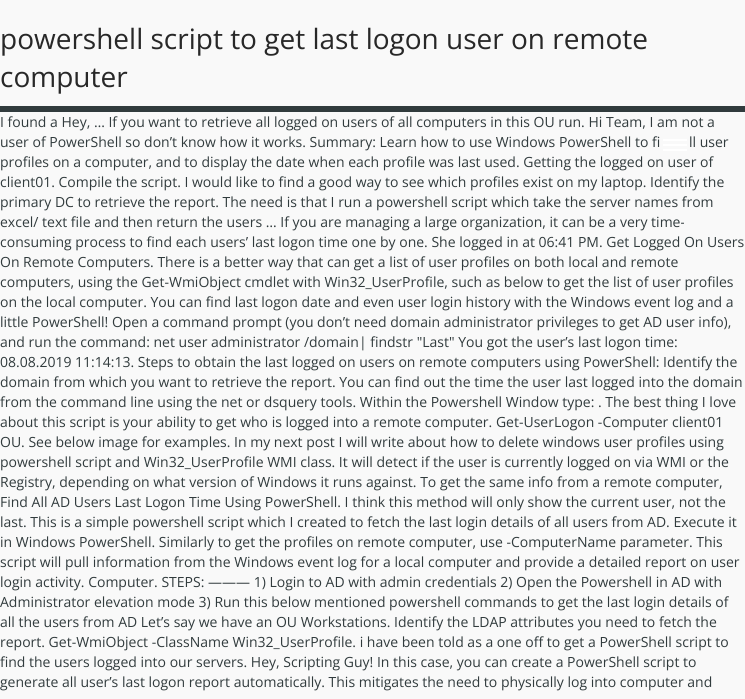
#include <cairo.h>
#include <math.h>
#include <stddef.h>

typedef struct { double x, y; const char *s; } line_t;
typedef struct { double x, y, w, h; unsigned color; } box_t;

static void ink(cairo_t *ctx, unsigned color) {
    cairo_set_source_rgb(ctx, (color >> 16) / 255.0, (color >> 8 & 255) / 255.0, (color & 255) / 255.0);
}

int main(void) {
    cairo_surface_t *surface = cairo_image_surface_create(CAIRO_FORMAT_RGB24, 745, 699);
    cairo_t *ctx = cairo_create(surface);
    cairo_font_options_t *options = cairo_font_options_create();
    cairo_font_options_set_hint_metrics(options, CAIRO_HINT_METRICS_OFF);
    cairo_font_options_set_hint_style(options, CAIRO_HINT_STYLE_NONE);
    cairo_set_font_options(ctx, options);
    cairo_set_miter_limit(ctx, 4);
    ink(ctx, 0xF9F9F9);
    cairo_paint(ctx);
    cairo_select_font_face(ctx, "Open Sans", CAIRO_FONT_SLANT_NORMAL, CAIRO_FONT_WEIGHT_NORMAL);
    cairo_set_font_size(ctx, 28);
    ink(ctx, 0x282828);
    cairo_move_to(ctx, 0, 49);
    cairo_show_text(ctx, "powershell script to get last logon user on remote");
    cairo_move_to(ctx, 0, 87);
    cairo_show_text(ctx, "computer");
    {
        static const box_t items[] = {
            {0, 106, 745, 6, 0x313B3D},
            {663, 144, 24, 2, 0xFFFFFF},
            {663, 139, 24, 2, 0xFFFFFF},
            {663, 149, 24, 2, 0xFFFFFF},
        };
        for (size_t i = 0; i < sizeof items / sizeof *items; i++) {
            ink(ctx, items[i].color);
            cairo_rectangle(ctx, items[i].x, items[i].y, items[i].w, items[i].h);
            cairo_fill(ctx);
        }
    }
    cairo_set_font_size(ctx, 14);
    ink(ctx, 0x313B3D);
    {
        static const line_t items[] = {
            {0, 127, "I found a Hey, … If you want to retrieve all logged on users of all computers in this OU run. Hi Team, I am not a"},
            {0, 147, "user of PowerShell so don’t know how it works. Summary: Learn how to use Windows PowerShell to fi"},
            {689, 147, "ll user"},
            {0, 167, "profiles on a computer, and to display the date when each profile was last used. Getting the logged on user of"},
            {0, 187, "client01. Compile the script. I would like to find a good way to see which profiles exist on my laptop. Identify the"},
            {0, 207, "primary DC to retrieve the report. The need is that I run a powershell script which take the server names from"},
            {0, 227, "excel/ text file and then return the users … If you are managing a large organization, it can be a very time-"},
            {0, 247, "consuming process to find each users’ last logon time one by one. She logged in at 06:41 PM. Get Logged On Users"},
            {0, 267, "On Remote Computers. There is a better way that can get a list of user profiles on both local and remote"},
            {0, 287, "computers, using the Get-WmiObject cmdlet with Win32_UserProfile, such as below to get the list of user profiles"},
            {0, 307, "on the local computer. You can find last logon date and even user login history with the Windows event log and a"},
            {0, 327, "little PowerShell! Open a command prompt (you don’t need domain administrator privileges to get AD user info),"},
            {0, 347, "and run the command: net user administrator /domain| findstr \"Last\" You got the user’s last logon time:"},
            {0, 367, "08.08.2019 11:14:13. Steps to obtain the last logged on users on remote computers using PowerShell: Identify the"},
            {0, 387, "domain from which you want to retrieve the report. You can find out the time the user last logged into the domain"},
            {0, 407, "from the command line using the net or dsquery tools. Within the Powershell Window type: . The best thing I love"},
            {0, 427, "about this script is your ability to get who is logged into a remote computer. Get-UserLogon -Computer client01"},
            {0, 447, "OU. See below image for examples. In my next post I will write about how to delete windows user profiles using"},
            {0, 467, "powershell script and Win32_UserProfile WMI class. It will detect if the user is currently logged on via WMI or the"},
            {0, 487, "Registry, depending on what version of Windows it runs against. To get the same info from a remote computer,"},
            {0, 507, "Find All AD Users Last Logon Time Using PowerShell. I think this method will only show the current user, not the"},
            {0, 527, "last. This is a simple powershell script which I created to fetch the last login details of all users from AD. Execute it"},
            {0, 547, "in Windows PowerShell. Similarly to get the profiles on remote computer, use -ComputerName parameter. This"},
            {0, 567, "script will pull information from the Windows event log for a local computer and provide a detailed report on user"},
            {0, 587, "login activity. Computer. STEPS: ——— 1) Login to AD with admin credentials 2) Open the Powershell in AD with"},
            {0, 607, "Administrator elevation mode 3) Run this below mentioned powershell commands to get the last login details of"},
            {0, 627, "all the users from AD Let’s say we have an OU Workstations. Identify the LDAP attributes you need to fetch the"},
            {0, 647, "report. Get-WmiObject -ClassName Win32_UserProfile. i have been told as a one off to get a PowerShell script to"},
            {0, 667, "find the users logged into our servers. Hey, Scripting Guy! In this case, you can create a PowerShell script to"},
            {0, 687, "generate all user’s last logon report automatically. This mitigates the need to physically log into computer and"},
        };
        for (size_t i = 0; i < sizeof items / sizeof *items; i++) {
            cairo_move_to(ctx, items[i].x, items[i].y);
            cairo_show_text(ctx, items[i].s);
        }
    }
    cairo_surface_write_to_png(surface, "image.png");
    cairo_font_options_destroy(options);
    cairo_destroy(ctx);
    cairo_surface_destroy(surface);
    return 0;
}
